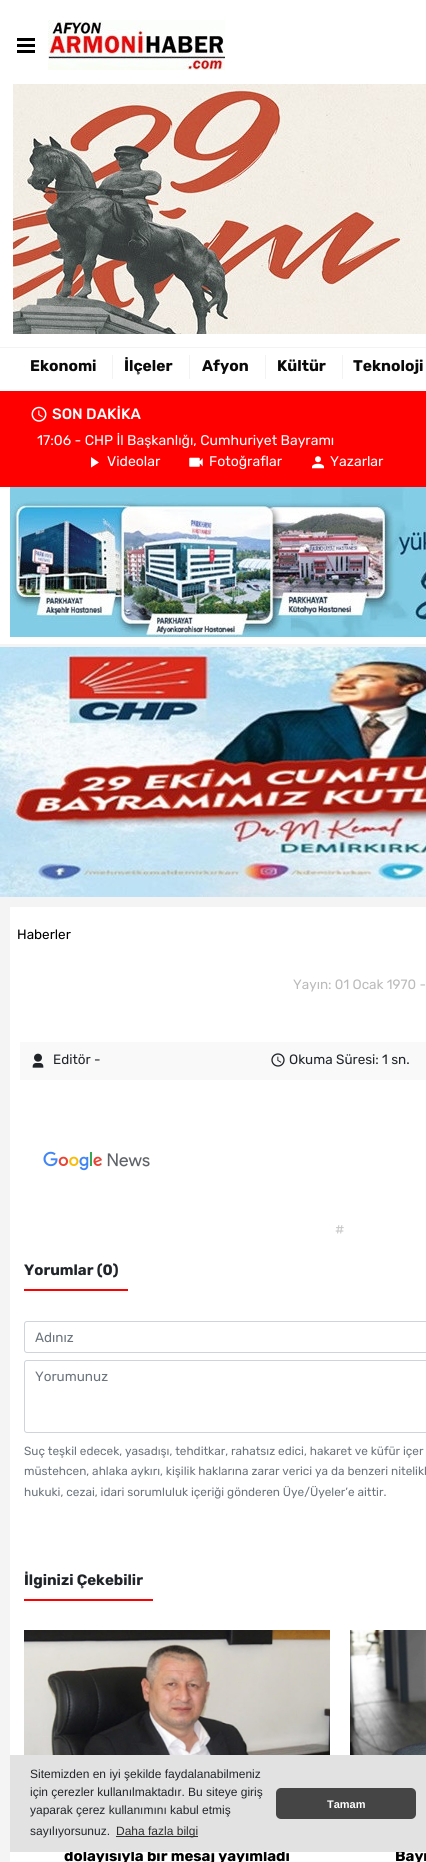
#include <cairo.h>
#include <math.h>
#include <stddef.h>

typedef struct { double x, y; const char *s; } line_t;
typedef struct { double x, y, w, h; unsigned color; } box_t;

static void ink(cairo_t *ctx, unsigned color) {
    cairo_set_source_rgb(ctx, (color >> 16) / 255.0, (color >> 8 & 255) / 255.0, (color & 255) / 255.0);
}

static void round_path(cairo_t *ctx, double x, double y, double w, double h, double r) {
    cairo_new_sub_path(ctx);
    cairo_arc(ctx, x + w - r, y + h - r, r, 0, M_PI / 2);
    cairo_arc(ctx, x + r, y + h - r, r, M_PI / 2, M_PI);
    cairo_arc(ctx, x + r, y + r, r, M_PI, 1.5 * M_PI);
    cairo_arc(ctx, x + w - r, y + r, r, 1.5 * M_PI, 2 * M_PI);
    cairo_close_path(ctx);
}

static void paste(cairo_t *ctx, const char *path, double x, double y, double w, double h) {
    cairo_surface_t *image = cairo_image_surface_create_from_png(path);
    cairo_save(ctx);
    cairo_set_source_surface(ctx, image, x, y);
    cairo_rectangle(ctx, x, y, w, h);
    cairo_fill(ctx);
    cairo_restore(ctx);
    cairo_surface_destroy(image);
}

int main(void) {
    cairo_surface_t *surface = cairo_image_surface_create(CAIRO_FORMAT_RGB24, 426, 1862);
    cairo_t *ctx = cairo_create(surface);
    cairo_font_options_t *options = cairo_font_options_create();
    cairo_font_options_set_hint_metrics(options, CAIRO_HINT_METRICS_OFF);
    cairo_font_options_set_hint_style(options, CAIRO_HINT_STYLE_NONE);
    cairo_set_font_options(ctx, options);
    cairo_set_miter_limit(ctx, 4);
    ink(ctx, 0xF4F4F4);
    cairo_paint(ctx);
    {
        static const box_t items[] = {
            {0, 0, 426, 644, 0xFFFFFF},
            {17, 38, 18, 3, 0x000000},
            {17, 44, 18, 3, 0x000000},
            {17, 50, 18, 3, 0x000000},
        };
        for (size_t i = 0; i < sizeof items / sizeof *items; i++) {
            ink(ctx, items[i].color);
            cairo_rectangle(ctx, items[i].x, items[i].y, items[i].w, items[i].h);
            cairo_fill(ctx);
        }
    }
    paste(ctx, "media/1.png", 48, 20, 177, 50);
    paste(ctx, "media/2.png", 13, 84, 413, 250);
    ink(ctx, 0xF3F3F3);
    cairo_rectangle(ctx, 0, 347, 426, 1);
    cairo_fill(ctx);
    cairo_rectangle(ctx, 112, 355, 1, 24);
    cairo_fill(ctx);
    cairo_select_font_face(ctx, "Rubik", CAIRO_FONT_SLANT_NORMAL, CAIRO_FONT_WEIGHT_BOLD);
    cairo_set_font_size(ctx, 15.5);
    ink(ctx, 0x0A0A0A);
    cairo_move_to(ctx, 30, 371);
    cairo_show_text(ctx, "Ekonomi");
    ink(ctx, 0xF3F3F3);
    cairo_rectangle(ctx, 189, 355, 1, 24);
    cairo_fill(ctx);
    ink(ctx, 0x0A0A0A);
    cairo_move_to(ctx, 124, 371);
    cairo_show_text(ctx, "İlçeler");
    ink(ctx, 0xF3F3F3);
    cairo_rectangle(ctx, 265, 355, 1, 24);
    cairo_fill(ctx);
    ink(ctx, 0x0A0A0A);
    cairo_move_to(ctx, 202, 371);
    cairo_show_text(ctx, "Afyon");
    ink(ctx, 0xF3F3F3);
    cairo_rectangle(ctx, 342, 355, 1, 24);
    cairo_fill(ctx);
    ink(ctx, 0x0A0A0A);
    cairo_move_to(ctx, 277, 371);
    cairo_show_text(ctx, "Kültür");
    cairo_move_to(ctx, 353, 371);
    cairo_show_text(ctx, "Teknoloji");
    ink(ctx, 0xFF0000);
    cairo_rectangle(ctx, 0, 391, 426, 96);
    cairo_fill(ctx);
    paste(ctx, "media/3.png", 31, 406, 16, 16);
    cairo_select_font_face(ctx, "Rubik Medium", CAIRO_FONT_SLANT_NORMAL, CAIRO_FONT_WEIGHT_NORMAL);
    cairo_set_font_size(ctx, 15);
    ink(ctx, 0xFFFFFF);
    cairo_move_to(ctx, 52, 419);
    cairo_show_text(ctx, "SON DAKİKA");
    cairo_select_font_face(ctx, "Rubik", CAIRO_FONT_SLANT_NORMAL, CAIRO_FONT_WEIGHT_NORMAL);
    cairo_set_font_size(ctx, 14);
    cairo_move_to(ctx, 37, 445);
    cairo_show_text(ctx, "17:06 - CHP İl Başkanlığı, Cumhuriyet Bayramı");
    cairo_new_path(ctx);
    cairo_move_to(ctx, 91, 457);
    cairo_line_to(ctx, 91, 467.5);
    cairo_line_to(ctx, 99, 462.5);
    cairo_close_path(ctx);
    cairo_fill(ctx);
    cairo_move_to(ctx, 107, 466);
    cairo_show_text(ctx, "Videolar");
    paste(ctx, "media/4.png", 189, 457, 14, 10);
    cairo_move_to(ctx, 209, 466);
    cairo_show_text(ctx, "Fotoğraflar");
    paste(ctx, "media/5.png", 312, 456, 12, 13);
    cairo_move_to(ctx, 330, 466);
    cairo_show_text(ctx, "Yazarlar");
    paste(ctx, "media/6.png", 10, 487, 416, 150);
    paste(ctx, "media/7.png", 0, 647, 426, 250);
    cairo_rectangle(ctx, 10, 907, 416, 955);
    cairo_fill(ctx);
    cairo_set_font_size(ctx, 13.5);
    ink(ctx, 0x000000);
    cairo_move_to(ctx, 17, 939);
    cairo_show_text(ctx, "Haberler");
    ink(ctx, 0xBBBBBB);
    cairo_move_to(ctx, 293, 989);
    cairo_show_text(ctx, "Yayın: 01 Ocak 1970 -");
    ink(ctx, 0xF9F9F9);
    cairo_rectangle(ctx, 20, 1042, 406, 38);
    cairo_fill(ctx);
    paste(ctx, "media/8.png", 32, 1053, 12, 15);
    ink(ctx, 0x212529);
    cairo_move_to(ctx, 53, 1064);
    cairo_show_text(ctx, "Editör -");
    paste(ctx, "media/9.png", 271, 1053, 14, 14);
    cairo_move_to(ctx, 289, 1064);
    cairo_show_text(ctx, "Okuma Süresi: 1 sn.");
    paste(ctx, "media/10.png", 43, 1151, 107, 20);
    ink(ctx, 0xC7C7C7);
    cairo_move_to(ctx, 335, 1234);
    cairo_show_text(ctx, "#");
    cairo_select_font_face(ctx, "Rubik", CAIRO_FONT_SLANT_NORMAL, CAIRO_FONT_WEIGHT_BOLD);
    cairo_set_font_size(ctx, 15);
    ink(ctx, 0x212529);
    cairo_move_to(ctx, 24, 1275);
    cairo_show_text(ctx, "Yorumlar (0)");
    ink(ctx, 0xFF0000);
    cairo_rectangle(ctx, 24, 1289, 104, 2);
    cairo_fill(ctx);
    round_path(ctx, 24.5, 1321.5, 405, 31, 2.5);
    ink(ctx, 0xCED4DA);
    cairo_set_line_width(ctx, 1);
    cairo_stroke(ctx);
    cairo_select_font_face(ctx, "Rubik", CAIRO_FONT_SLANT_NORMAL, CAIRO_FONT_WEIGHT_NORMAL);
    cairo_set_font_size(ctx, 13.5);
    ink(ctx, 0x6C757D);
    cairo_move_to(ctx, 35, 1342);
    cairo_show_text(ctx, "Adınız");
    round_path(ctx, 24.5, 1360.5, 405, 72, 2.5);
    ink(ctx, 0xCED4DA);
    cairo_stroke(ctx);
    ink(ctx, 0x6C757D);
    cairo_move_to(ctx, 35, 1381);
    cairo_show_text(ctx, "Yorumunuz");
    cairo_set_font_size(ctx, 11.8);
    {
        static const line_t items[] = {
            {24, 1455, "Suç teşkil edecek, yasadışı, tehditkar, rahatsız edici, hakaret ve küfür içer"},
            {24, 1475, "müstehcen, ahlaka aykırı, kişilik haklarına zarar verici ya da benzeri nitelikl"},
            {24, 1496, "hukuki, cezai, idari sorumluluk içeriği gönderen Üye/Üyeler’e aittir."},
        };
        for (size_t i = 0; i < sizeof items / sizeof *items; i++) {
            cairo_move_to(ctx, items[i].x, items[i].y);
            cairo_show_text(ctx, items[i].s);
        }
    }
    cairo_select_font_face(ctx, "Rubik", CAIRO_FONT_SLANT_NORMAL, CAIRO_FONT_WEIGHT_BOLD);
    cairo_set_font_size(ctx, 15);
    ink(ctx, 0x212529);
    cairo_move_to(ctx, 24, 1585);
    cairo_show_text(ctx, "İlginizi Çekebilir");
    ink(ctx, 0xFF0000);
    cairo_rectangle(ctx, 24, 1599, 129, 2);
    cairo_fill(ctx);
    paste(ctx, "media/11.png", 24, 1630, 306, 125);
    ink(ctx, 0x000000);
    cairo_move_to(ctx, 64, 1861);
    cairo_show_text(ctx, "dolayısıyla bir mesaj yayımladı");
    paste(ctx, "media/12.png", 350, 1630, 76, 125);
    cairo_move_to(ctx, 395, 1861);
    cairo_show_text(ctx, "Bayr");
    ink(ctx, 0xE2E2E2);
    cairo_rectangle(ctx, 10, 1755, 416, 97);
    cairo_fill(ctx);
    cairo_select_font_face(ctx, "Liberation Sans", CAIRO_FONT_SLANT_NORMAL, CAIRO_FONT_WEIGHT_NORMAL);
    cairo_set_font_size(ctx, 12);
    ink(ctx, 0x212529);
    {
        static const line_t items[] = {
            {30, 1778, "Sitemizden en iyi şekilde faydalanabilmeniz"},
            {30, 1796, "için çerezler kullanılmaktadır. Bu siteye giriş"},
            {30, 1814, "yaparak çerez kullanımını kabul etmiş"},
            {30, 1835, "sayılıyorsunuz."},
        };
        for (size_t i = 0; i < sizeof items / sizeof *items; i++) {
            cairo_move_to(ctx, items[i].x, items[i].y);
            cairo_show_text(ctx, items[i].s);
        }
    }
    ink(ctx, 0x2D2D2D);
    cairo_rectangle(ctx, 116, 1836, 82, 1);
    cairo_fill(ctx);
    cairo_move_to(ctx, 116, 1835);
    cairo_show_text(ctx, "Daha fazla bilgi");
    ink(ctx, 0x454545);
    round_path(ctx, 276, 1788, 140, 31, 5);
    cairo_fill(ctx);
    cairo_select_font_face(ctx, "Liberation Sans", CAIRO_FONT_SLANT_NORMAL, CAIRO_FONT_WEIGHT_BOLD);
    cairo_set_font_size(ctx, 11);
    ink(ctx, 0xFFFFFF);
    cairo_move_to(ctx, 327, 1808);
    cairo_show_text(ctx, "Tamam");
    cairo_surface_write_to_png(surface, "image.png");
    cairo_font_options_destroy(options);
    cairo_destroy(ctx);
    cairo_surface_destroy(surface);
    return 0;
}
